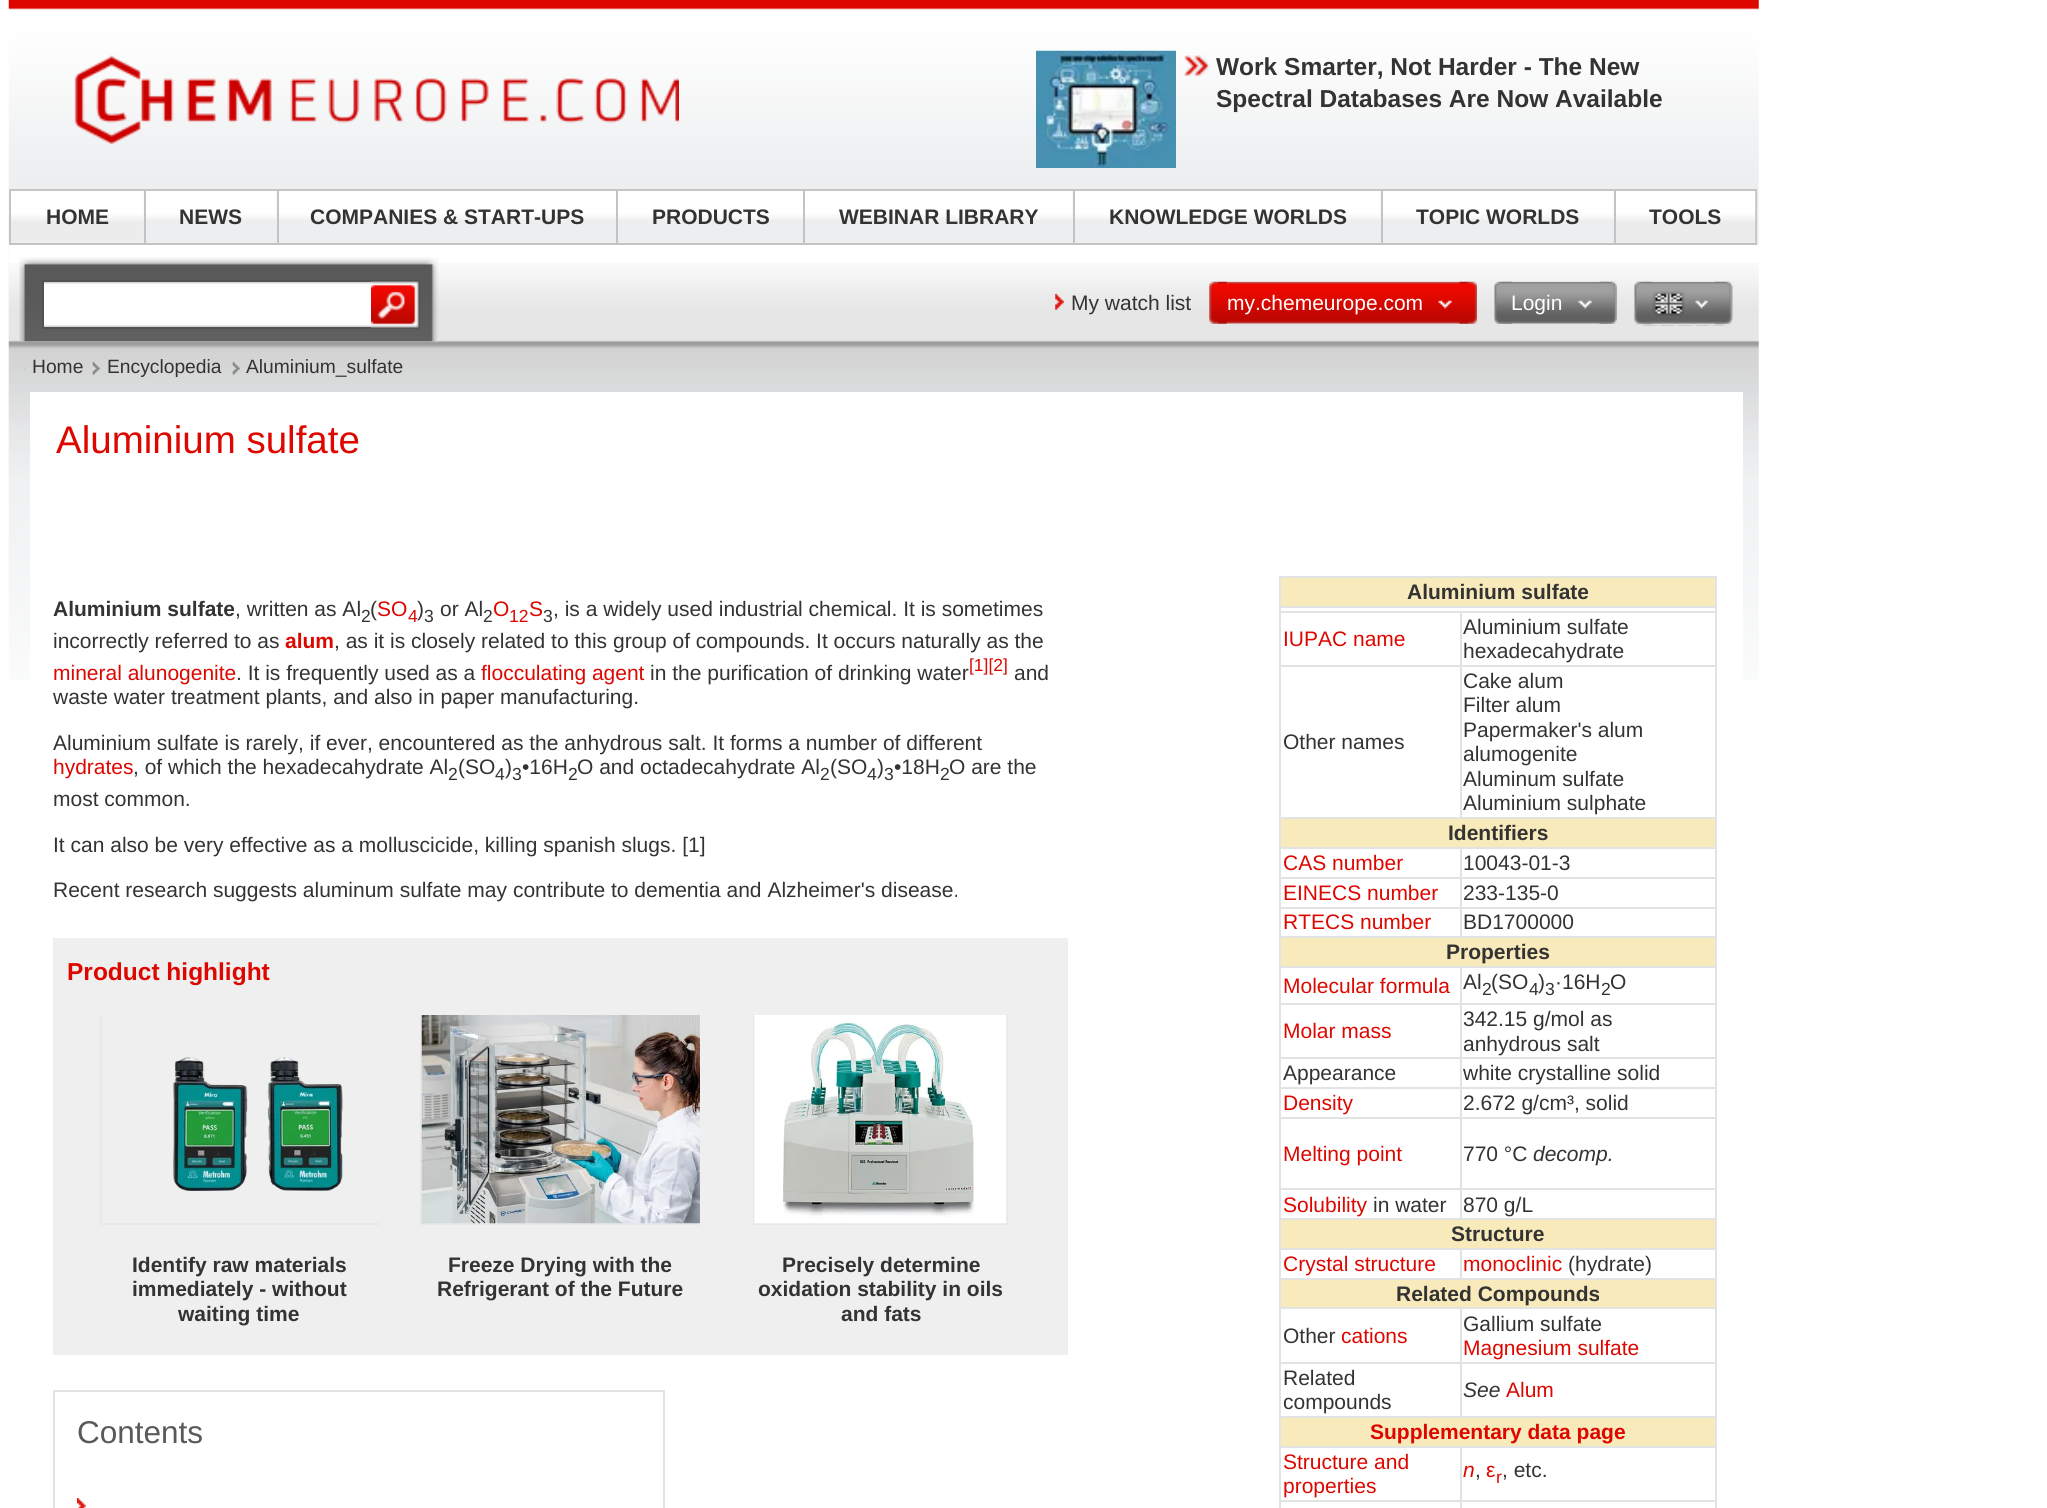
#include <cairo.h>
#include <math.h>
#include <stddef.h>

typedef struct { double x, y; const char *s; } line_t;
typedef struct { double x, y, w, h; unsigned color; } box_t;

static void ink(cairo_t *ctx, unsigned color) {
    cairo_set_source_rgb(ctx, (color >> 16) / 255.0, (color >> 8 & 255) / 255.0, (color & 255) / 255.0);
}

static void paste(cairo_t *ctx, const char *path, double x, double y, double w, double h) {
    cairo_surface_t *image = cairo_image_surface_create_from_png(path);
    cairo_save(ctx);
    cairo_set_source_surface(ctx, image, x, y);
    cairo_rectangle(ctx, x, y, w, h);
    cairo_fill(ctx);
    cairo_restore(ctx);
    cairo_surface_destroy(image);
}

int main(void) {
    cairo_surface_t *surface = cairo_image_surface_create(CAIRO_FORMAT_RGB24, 2047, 1508);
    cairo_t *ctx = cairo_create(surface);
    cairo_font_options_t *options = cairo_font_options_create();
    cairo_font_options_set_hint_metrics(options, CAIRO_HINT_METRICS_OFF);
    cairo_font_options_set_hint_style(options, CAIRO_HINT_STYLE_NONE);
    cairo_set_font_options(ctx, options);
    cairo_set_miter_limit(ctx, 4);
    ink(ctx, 0xFFFFFF);
    cairo_paint(ctx);
    paste(ctx, "media/1.png", 8, 0, 1751, 629);
    paste(ctx, "media/2.png", 74, 55, 605, 89);
    paste(ctx, "media/3.png", 1036, 50, 140, 118);
    paste(ctx, "media/4.png", 1184, 55, 26, 22);
    cairo_select_font_face(ctx, "Liberation Sans", CAIRO_FONT_SLANT_NORMAL, CAIRO_FONT_WEIGHT_BOLD);
    cairo_set_font_size(ctx, 24.5);
    ink(ctx, 0x333333);
    cairo_move_to(ctx, 1216, 75);
    cairo_show_text(ctx, "Work Smarter, Not Harder - The New");
    cairo_move_to(ctx, 1216, 107);
    cairo_show_text(ctx, "Spectral Databases Are Now Available");
    {
        static const box_t items[] = {
            {9, 189, 1748, 2, 0xC3C3C3},
            {1755, 189, 2, 56, 0xC3C3C3},
            {9, 243, 1748, 2, 0xC3C3C3},
        };
        for (size_t i = 0; i < sizeof items / sizeof *items; i++) {
            ink(ctx, items[i].color);
            cairo_rectangle(ctx, items[i].x, items[i].y, items[i].w, items[i].h);
            cairo_fill(ctx);
        }
    }
    paste(ctx, "media/5.png", 8, 190, 136, 51);
    cairo_rectangle(ctx, 9, 191, 2, 52);
    cairo_fill(ctx);
    cairo_set_font_size(ctx, 21);
    ink(ctx, 0x333333);
    cairo_move_to(ctx, 46, 224);
    cairo_show_text(ctx, "HOME");
    paste(ctx, "media/6.png", 143, 190, 134, 30);
    ink(ctx, 0xC3C3C3);
    cairo_rectangle(ctx, 144, 191, 2, 52);
    cairo_fill(ctx);
    ink(ctx, 0x333333);
    cairo_move_to(ctx, 179, 224);
    cairo_show_text(ctx, "NEWS");
    paste(ctx, "media/7.png", 276, 190, 340, 30);
    ink(ctx, 0xC3C3C3);
    cairo_rectangle(ctx, 277, 191, 2, 52);
    cairo_fill(ctx);
    ink(ctx, 0x333333);
    cairo_move_to(ctx, 310, 224);
    cairo_show_text(ctx, "COMPANIES & START-UPS");
    paste(ctx, "media/8.png", 616, 190, 187, 30);
    ink(ctx, 0xC3C3C3);
    cairo_rectangle(ctx, 616, 191, 2, 52);
    cairo_fill(ctx);
    ink(ctx, 0x333333);
    cairo_move_to(ctx, 652, 224);
    cairo_show_text(ctx, "PRODUCTS");
    paste(ctx, "media/9.png", 803, 190, 270, 30);
    ink(ctx, 0xC3C3C3);
    cairo_rectangle(ctx, 803, 191, 2, 52);
    cairo_fill(ctx);
    ink(ctx, 0x333333);
    cairo_move_to(ctx, 839, 224);
    cairo_show_text(ctx, "WEBINAR LIBRARY");
    paste(ctx, "media/10.png", 1073, 190, 308, 30);
    ink(ctx, 0xC3C3C3);
    cairo_rectangle(ctx, 1073, 191, 2, 52);
    cairo_fill(ctx);
    ink(ctx, 0x333333);
    cairo_move_to(ctx, 1109, 224);
    cairo_show_text(ctx, "KNOWLEDGE WORLDS");
    paste(ctx, "media/11.png", 1381, 190, 233, 30);
    ink(ctx, 0xC3C3C3);
    cairo_rectangle(ctx, 1381, 191, 2, 52);
    cairo_fill(ctx);
    ink(ctx, 0x333333);
    cairo_move_to(ctx, 1416, 224);
    cairo_show_text(ctx, "TOPIC WORLDS");
    paste(ctx, "media/12.png", 1613, 190, 143, 53);
    ink(ctx, 0xC3C3C3);
    cairo_rectangle(ctx, 1614, 191, 2, 52);
    cairo_fill(ctx);
    ink(ctx, 0x333333);
    cairo_move_to(ctx, 1649, 224);
    cairo_show_text(ctx, "TOOLS");
    ink(ctx, 0xFFFFFF);
    cairo_rectangle(ctx, 9, 245, 1750, 384);
    cairo_fill(ctx);
    paste(ctx, "media/13.png", 8, 263, 1751, 417);
    paste(ctx, "media/14.png", 19, 257, 420, 85);
    paste(ctx, "media/15.png", 44, 282, 327, 45);
    {
        static const box_t items[] = {
            {42, 280, 329, 2, 0x535252},
            {42, 327, 329, 2, 0x535252},
            {42, 280, 2, 49, 0x535252},
        };
        for (size_t i = 0; i < sizeof items / sizeof *items; i++) {
            ink(ctx, items[i].color);
            cairo_rectangle(ctx, items[i].x, items[i].y, items[i].w, items[i].h);
            cairo_fill(ctx);
        }
    }
    paste(ctx, "media/16.png", 371, 280, 49, 49);
    paste(ctx, "media/17.png", 1055, 294, 9, 16);
    cairo_select_font_face(ctx, "Liberation Sans", CAIRO_FONT_SLANT_NORMAL, CAIRO_FONT_WEIGHT_NORMAL);
    ink(ctx, 0x333333);
    cairo_move_to(ctx, 1071, 310);
    cairo_show_text(ctx, "My watch list");
    paste(ctx, "media/18.png", 1209, 281, 18, 43);
    paste(ctx, "media/19.png", 1459, 281, 18, 43);
    paste(ctx, "media/20.png", 1218, 281, 251, 43);
    ink(ctx, 0xFFFFFF);
    cairo_move_to(ctx, 1227, 310);
    cairo_show_text(ctx, "my.chemeurope.com");
    paste(ctx, "media/21.png", 1438, 300, 14, 9);
    paste(ctx, "media/22.png", 1494, 281, 18, 43);
    paste(ctx, "media/23.png", 1599, 281, 18, 43);
    paste(ctx, "media/24.png", 1503, 281, 105, 43);
    cairo_move_to(ctx, 1511, 310);
    cairo_show_text(ctx, "Login");
    paste(ctx, "media/25.png", 1578, 300, 14, 9);
    paste(ctx, "media/26.png", 1634, 281, 18, 44);
    paste(ctx, "media/27.png", 1715, 281, 18, 44);
    paste(ctx, "media/28.png", 1643, 281, 81, 45);
    paste(ctx, "media/29.png", 1652, 291, 33, 25);
    paste(ctx, "media/30.png", 1695, 300, 13, 9);
    paste(ctx, "media/31.png", 24, 367, 1, 3);
    cairo_set_font_size(ctx, 19.25);
    ink(ctx, 0x333333);
    cairo_move_to(ctx, 32, 373);
    cairo_show_text(ctx, "Home");
    paste(ctx, "media/32.png", 92, 362, 8, 13);
    cairo_move_to(ctx, 107, 373);
    cairo_show_text(ctx, "Encyclopedia");
    paste(ctx, "media/33.png", 232, 362, 8, 13);
    cairo_move_to(ctx, 246, 373);
    cairo_show_text(ctx, "Aluminium_sulfate");
    ink(ctx, 0xFFFFFF);
    cairo_rectangle(ctx, 30, 392, 1713, 288);
    cairo_fill(ctx);
    cairo_set_font_size(ctx, 38.5);
    ink(ctx, 0xDD0700);
    cairo_move_to(ctx, 56, 453);
    cairo_show_text(ctx, "Aluminium sulfate");
    cairo_select_font_face(ctx, "Liberation Sans", CAIRO_FONT_SLANT_NORMAL, CAIRO_FONT_WEIGHT_BOLD);
    cairo_set_font_size(ctx, 21);
    ink(ctx, 0x333333);
    cairo_move_to(ctx, 53, 616);
    cairo_show_text(ctx, "Aluminium sulfate");
    cairo_select_font_face(ctx, "Liberation Sans", CAIRO_FONT_SLANT_NORMAL, CAIRO_FONT_WEIGHT_NORMAL);
    cairo_move_to(ctx, 235, 616);
    cairo_show_text(ctx, ", written as Al");
    cairo_set_font_size(ctx, 17.5);
    cairo_move_to(ctx, 361, 622);
    cairo_show_text(ctx, "2");
    cairo_set_font_size(ctx, 21);
    cairo_move_to(ctx, 370, 616);
    cairo_show_text(ctx, "(");
    ink(ctx, 0xDD0700);
    cairo_move_to(ctx, 377, 616);
    cairo_show_text(ctx, "SO");
    cairo_set_font_size(ctx, 17.5);
    cairo_move_to(ctx, 408, 622);
    cairo_show_text(ctx, "4");
    cairo_set_font_size(ctx, 21);
    ink(ctx, 0x333333);
    cairo_move_to(ctx, 417, 616);
    cairo_show_text(ctx, ")");
    cairo_set_font_size(ctx, 17.5);
    cairo_move_to(ctx, 424, 622);
    cairo_show_text(ctx, "3");
    cairo_set_font_size(ctx, 21);
    cairo_move_to(ctx, 440, 616);
    cairo_show_text(ctx, "or Al");
    cairo_set_font_size(ctx, 17.5);
    cairo_move_to(ctx, 483, 622);
    cairo_show_text(ctx, "2");
    cairo_set_font_size(ctx, 21);
    ink(ctx, 0xDD0700);
    cairo_move_to(ctx, 493, 616);
    cairo_show_text(ctx, "O");
    cairo_set_font_size(ctx, 17.5);
    cairo_move_to(ctx, 509, 622);
    cairo_show_text(ctx, "12");
    cairo_set_font_size(ctx, 21);
    cairo_move_to(ctx, 529, 616);
    cairo_show_text(ctx, "S");
    cairo_set_font_size(ctx, 17.5);
    ink(ctx, 0x333333);
    cairo_move_to(ctx, 543, 622);
    cairo_show_text(ctx, "3");
    cairo_set_font_size(ctx, 21);
    cairo_move_to(ctx, 553, 616);
    cairo_show_text(ctx, ", is a widely used industrial chemical. It is sometimes");
    cairo_move_to(ctx, 53, 648);
    cairo_show_text(ctx, "incorrectly referred to as");
    cairo_select_font_face(ctx, "Liberation Sans", CAIRO_FONT_SLANT_NORMAL, CAIRO_FONT_WEIGHT_BOLD);
    ink(ctx, 0xDD0700);
    cairo_move_to(ctx, 285, 648);
    cairo_show_text(ctx, "alum");
    cairo_select_font_face(ctx, "Liberation Sans", CAIRO_FONT_SLANT_NORMAL, CAIRO_FONT_WEIGHT_NORMAL);
    ink(ctx, 0x333333);
    cairo_move_to(ctx, 334, 648);
    cairo_show_text(ctx, ", as it is closely related to this group of compounds. It occurs naturally as the");
    ink(ctx, 0xDD0700);
    cairo_move_to(ctx, 53, 680);
    cairo_show_text(ctx, "mineral alunogenite");
    ink(ctx, 0x333333);
    cairo_move_to(ctx, 236, 680);
    cairo_show_text(ctx, ". It is frequently used as a");
    ink(ctx, 0xDD0700);
    cairo_move_to(ctx, 481, 680);
    cairo_show_text(ctx, "flocculating agent");
    ink(ctx, 0x333333);
    cairo_move_to(ctx, 650, 680);
    cairo_show_text(ctx, "in the purification of drinking water");
    cairo_set_font_size(ctx, 17.5);
    ink(ctx, 0xDD0700);
    cairo_move_to(ctx, 969, 671);
    cairo_show_text(ctx, "[1][2]");
    cairo_set_font_size(ctx, 21);
    ink(ctx, 0x333333);
    cairo_move_to(ctx, 1014, 680);
    cairo_show_text(ctx, "and");
    cairo_move_to(ctx, 53, 704);
    cairo_show_text(ctx, "waste water treatment plants, and also in paper manufacturing.");
    {
        static const box_t items[] = {
            {1279, 576, 438, 2, 0xE2E3E3},
            {1715, 576, 2, 932, 0xE2E3E3},
            {1279, 576, 2, 932, 0xE2E3E3},
            {1281, 578, 434, 28, 0xF8EABA},
        };
        for (size_t i = 0; i < sizeof items / sizeof *items; i++) {
            ink(ctx, items[i].color);
            cairo_rectangle(ctx, items[i].x, items[i].y, items[i].w, items[i].h);
            cairo_fill(ctx);
        }
    }
    cairo_select_font_face(ctx, "Liberation Sans", CAIRO_FONT_SLANT_NORMAL, CAIRO_FONT_WEIGHT_BOLD);
    ink(ctx, 0x333333);
    cairo_move_to(ctx, 1407, 599);
    cairo_show_text(ctx, "Aluminium sulfate");
    {
        static const box_t items[] = {
            {1279, 606, 438, 2, 0xE2E3E3},
            {1460, 611, 257, 2, 0xE2E3E3},
            {1460, 665, 257, 2, 0xE2E3E3},
            {1279, 817, 438, 2, 0xE2E3E3},
            {1460, 665, 2, 154, 0xE2E3E3},
            {1279, 665, 182, 2, 0xE2E3E3},
            {1460, 611, 2, 56, 0xE2E3E3},
            {1279, 611, 182, 2, 0xE2E3E3},
        };
        for (size_t i = 0; i < sizeof items / sizeof *items; i++) {
            ink(ctx, items[i].color);
            cairo_rectangle(ctx, items[i].x, items[i].y, items[i].w, items[i].h);
            cairo_fill(ctx);
        }
    }
    cairo_select_font_face(ctx, "Liberation Sans", CAIRO_FONT_SLANT_NORMAL, CAIRO_FONT_WEIGHT_NORMAL);
    ink(ctx, 0xDD0700);
    cairo_move_to(ctx, 1283, 646);
    cairo_show_text(ctx, "IUPAC name");
    ink(ctx, 0x333333);
    {
        static const line_t items[] = {
            {1463, 634, "Aluminium sulfate"},
            {1463, 658, "hexadecahydrate"},
            {1283, 749, "Other names"},
            {1463, 688, "Cake alum"},
            {1463, 712, "Filter alum"},
            {1463, 737, "Papermaker's alum"},
            {1463, 761, "alumogenite"},
            {1463, 786, "Aluminum sulfate"},
            {1463, 810, "Aluminium sulphate"},
        };
        for (size_t i = 0; i < sizeof items / sizeof *items; i++) {
            cairo_move_to(ctx, items[i].x, items[i].y);
            cairo_show_text(ctx, items[i].s);
        }
    }
    ink(ctx, 0xF8EABA);
    cairo_rectangle(ctx, 1281, 819, 434, 28);
    cairo_fill(ctx);
    cairo_select_font_face(ctx, "Liberation Sans", CAIRO_FONT_SLANT_NORMAL, CAIRO_FONT_WEIGHT_BOLD);
    ink(ctx, 0x333333);
    cairo_move_to(ctx, 1448, 840);
    cairo_show_text(ctx, "Identifiers");
    {
        static const box_t items[] = {
            {1460, 847, 257, 2, 0xE2E3E3},
            {1460, 877, 257, 2, 0xE2E3E3},
            {1460, 907, 257, 2, 0xE2E3E3},
            {1279, 936, 438, 2, 0xE2E3E3},
            {1460, 907, 2, 31, 0xE2E3E3},
            {1279, 907, 182, 2, 0xE2E3E3},
            {1460, 877, 2, 31, 0xE2E3E3},
            {1279, 877, 182, 2, 0xE2E3E3},
            {1460, 847, 2, 32, 0xE2E3E3},
            {1279, 847, 182, 2, 0xE2E3E3},
        };
        for (size_t i = 0; i < sizeof items / sizeof *items; i++) {
            ink(ctx, items[i].color);
            cairo_rectangle(ctx, items[i].x, items[i].y, items[i].w, items[i].h);
            cairo_fill(ctx);
        }
    }
    cairo_select_font_face(ctx, "Liberation Sans", CAIRO_FONT_SLANT_NORMAL, CAIRO_FONT_WEIGHT_NORMAL);
    ink(ctx, 0xDD0700);
    cairo_move_to(ctx, 1283, 870);
    cairo_show_text(ctx, "CAS number");
    ink(ctx, 0x333333);
    cairo_move_to(ctx, 1463, 870);
    cairo_show_text(ctx, "10043-01-3");
    ink(ctx, 0xDD0700);
    cairo_move_to(ctx, 1283, 900);
    cairo_show_text(ctx, "EINECS number");
    ink(ctx, 0x333333);
    cairo_move_to(ctx, 1463, 900);
    cairo_show_text(ctx, "233-135-0");
    ink(ctx, 0xDD0700);
    cairo_move_to(ctx, 1283, 929);
    cairo_show_text(ctx, "RTECS number");
    ink(ctx, 0x333333);
    cairo_move_to(ctx, 1463, 929);
    cairo_show_text(ctx, "BD1700000");
    ink(ctx, 0xF8EABA);
    cairo_rectangle(ctx, 1281, 938, 434, 28);
    cairo_fill(ctx);
    cairo_select_font_face(ctx, "Liberation Sans", CAIRO_FONT_SLANT_NORMAL, CAIRO_FONT_WEIGHT_BOLD);
    ink(ctx, 0x333333);
    cairo_move_to(ctx, 1446, 959);
    cairo_show_text(ctx, "Properties");
    {
        static const box_t items[] = {
            {1460, 966, 257, 2, 0xE2E3E3},
            {1460, 1003, 257, 2, 0xE2E3E3},
            {1460, 1057, 257, 2, 0xE2E3E3},
            {1460, 1087, 257, 2, 0xE2E3E3},
            {1460, 1117, 257, 2, 0xE2E3E3},
            {1460, 1188, 257, 2, 0xE2E3E3},
            {1279, 1218, 438, 2, 0xE2E3E3},
            {1460, 1188, 2, 32, 0xE2E3E3},
            {1279, 1188, 182, 2, 0xE2E3E3},
            {1460, 1117, 2, 73, 0xE2E3E3},
            {1279, 1117, 182, 2, 0xE2E3E3},
            {1460, 1087, 2, 31, 0xE2E3E3},
            {1279, 1087, 182, 2, 0xE2E3E3},
            {1460, 1057, 2, 32, 0xE2E3E3},
            {1279, 1057, 182, 2, 0xE2E3E3},
            {1460, 1003, 2, 56, 0xE2E3E3},
            {1279, 1003, 182, 2, 0xE2E3E3},
            {1460, 966, 2, 39, 0xE2E3E3},
            {1279, 966, 182, 2, 0xE2E3E3},
        };
        for (size_t i = 0; i < sizeof items / sizeof *items; i++) {
            ink(ctx, items[i].color);
            cairo_rectangle(ctx, items[i].x, items[i].y, items[i].w, items[i].h);
            cairo_fill(ctx);
        }
    }
    cairo_select_font_face(ctx, "Liberation Sans", CAIRO_FONT_SLANT_NORMAL, CAIRO_FONT_WEIGHT_NORMAL);
    ink(ctx, 0xDD0700);
    cairo_move_to(ctx, 1283, 993);
    cairo_show_text(ctx, "Molecular formula");
    ink(ctx, 0x333333);
    cairo_move_to(ctx, 1463, 989);
    cairo_show_text(ctx, "Al");
    cairo_set_font_size(ctx, 17.5);
    cairo_move_to(ctx, 1482, 995);
    cairo_show_text(ctx, "2");
    cairo_set_font_size(ctx, 21);
    cairo_move_to(ctx, 1491, 989);
    cairo_show_text(ctx, "(SO");
    cairo_set_font_size(ctx, 17.5);
    cairo_move_to(ctx, 1529, 995);
    cairo_show_text(ctx, "4");
    cairo_set_font_size(ctx, 21);
    cairo_move_to(ctx, 1538, 989);
    cairo_show_text(ctx, ")");
    cairo_set_font_size(ctx, 17.5);
    cairo_move_to(ctx, 1545, 995);
    cairo_show_text(ctx, "3");
    cairo_set_font_size(ctx, 21);
    cairo_move_to(ctx, 1555, 989);
    cairo_show_text(ctx, "·16H");
    cairo_set_font_size(ctx, 17.5);
    cairo_move_to(ctx, 1601, 995);
    cairo_show_text(ctx, "2");
    cairo_set_font_size(ctx, 21);
    cairo_move_to(ctx, 1610, 989);
    cairo_show_text(ctx, "O");
    ink(ctx, 0xDD0700);
    cairo_move_to(ctx, 1283, 1038);
    cairo_show_text(ctx, "Molar mass");
    ink(ctx, 0x333333);
    {
        static const line_t items[] = {
            {1463, 1026, "342.15 g/mol as"},
            {1463, 1051, "anhydrous salt"},
            {1283, 1080, "Appearance"},
            {1463, 1080, "white crystalline solid"},
        };
        for (size_t i = 0; i < sizeof items / sizeof *items; i++) {
            cairo_move_to(ctx, items[i].x, items[i].y);
            cairo_show_text(ctx, items[i].s);
        }
    }
    ink(ctx, 0xDD0700);
    cairo_move_to(ctx, 1283, 1110);
    cairo_show_text(ctx, "Density");
    ink(ctx, 0x333333);
    cairo_move_to(ctx, 1463, 1110);
    cairo_show_text(ctx, "2.672 g/cm³, solid");
    ink(ctx, 0xDD0700);
    cairo_move_to(ctx, 1283, 1161);
    cairo_show_text(ctx, "Melting point");
    ink(ctx, 0x333333);
    cairo_move_to(ctx, 1463, 1161);
    cairo_show_text(ctx, "770 °C");
    cairo_select_font_face(ctx, "Liberation Sans", CAIRO_FONT_SLANT_ITALIC, CAIRO_FONT_WEIGHT_NORMAL);
    cairo_move_to(ctx, 1533, 1161);
    cairo_show_text(ctx, "decomp.");
    cairo_select_font_face(ctx, "Liberation Sans", CAIRO_FONT_SLANT_NORMAL, CAIRO_FONT_WEIGHT_NORMAL);
    ink(ctx, 0xDD0700);
    cairo_move_to(ctx, 1283, 1212);
    cairo_show_text(ctx, "Solubility");
    ink(ctx, 0x333333);
    cairo_move_to(ctx, 1373, 1212);
    cairo_show_text(ctx, "in water");
    cairo_move_to(ctx, 1463, 1212);
    cairo_show_text(ctx, "870 g/L");
    ink(ctx, 0xF8EABA);
    cairo_rectangle(ctx, 1281, 1220, 434, 28);
    cairo_fill(ctx);
    cairo_select_font_face(ctx, "Liberation Sans", CAIRO_FONT_SLANT_NORMAL, CAIRO_FONT_WEIGHT_BOLD);
    ink(ctx, 0x333333);
    cairo_move_to(ctx, 1451, 1241);
    cairo_show_text(ctx, "Structure");
    {
        static const box_t items[] = {
            {1460, 1248, 257, 2, 0xE2E3E3},
            {1279, 1278, 438, 2, 0xE2E3E3},
            {1460, 1248, 2, 31, 0xE2E3E3},
            {1279, 1248, 182, 2, 0xE2E3E3},
        };
        for (size_t i = 0; i < sizeof items / sizeof *items; i++) {
            ink(ctx, items[i].color);
            cairo_rectangle(ctx, items[i].x, items[i].y, items[i].w, items[i].h);
            cairo_fill(ctx);
        }
    }
    cairo_select_font_face(ctx, "Liberation Sans", CAIRO_FONT_SLANT_NORMAL, CAIRO_FONT_WEIGHT_NORMAL);
    ink(ctx, 0xDD0700);
    cairo_move_to(ctx, 1283, 1271);
    cairo_show_text(ctx, "Crystal structure");
    cairo_move_to(ctx, 1463, 1271);
    cairo_show_text(ctx, "monoclinic");
    ink(ctx, 0x333333);
    cairo_move_to(ctx, 1568, 1271);
    cairo_show_text(ctx, "(hydrate)");
    ink(ctx, 0xF8EABA);
    cairo_rectangle(ctx, 1281, 1280, 434, 27);
    cairo_fill(ctx);
    cairo_select_font_face(ctx, "Liberation Sans", CAIRO_FONT_SLANT_NORMAL, CAIRO_FONT_WEIGHT_BOLD);
    ink(ctx, 0x333333);
    cairo_move_to(ctx, 1396, 1301);
    cairo_show_text(ctx, "Related Compounds");
    {
        static const box_t items[] = {
            {1460, 1307, 257, 2, 0xE2E3E3},
            {1460, 1362, 257, 2, 0xE2E3E3},
            {1279, 1416, 438, 2, 0xE2E3E3},
            {1460, 1362, 2, 56, 0xE2E3E3},
            {1279, 1362, 182, 2, 0xE2E3E3},
            {1460, 1307, 2, 56, 0xE2E3E3},
            {1279, 1307, 182, 2, 0xE2E3E3},
        };
        for (size_t i = 0; i < sizeof items / sizeof *items; i++) {
            ink(ctx, items[i].color);
            cairo_rectangle(ctx, items[i].x, items[i].y, items[i].w, items[i].h);
            cairo_fill(ctx);
        }
    }
    cairo_select_font_face(ctx, "Liberation Sans", CAIRO_FONT_SLANT_NORMAL, CAIRO_FONT_WEIGHT_NORMAL);
    ink(ctx, 0x333333);
    cairo_move_to(ctx, 1283, 1343);
    cairo_show_text(ctx, "Other");
    ink(ctx, 0xDD0700);
    cairo_move_to(ctx, 1341, 1343);
    cairo_show_text(ctx, "cations");
    ink(ctx, 0x333333);
    cairo_move_to(ctx, 1463, 1331);
    cairo_show_text(ctx, "Gallium sulfate");
    ink(ctx, 0xDD0700);
    cairo_move_to(ctx, 1463, 1355);
    cairo_show_text(ctx, "Magnesium sulfate");
    ink(ctx, 0x333333);
    cairo_move_to(ctx, 1283, 1385);
    cairo_show_text(ctx, "Related");
    cairo_move_to(ctx, 1283, 1409);
    cairo_show_text(ctx, "compounds");
    cairo_select_font_face(ctx, "Liberation Sans", CAIRO_FONT_SLANT_ITALIC, CAIRO_FONT_WEIGHT_NORMAL);
    cairo_move_to(ctx, 1463, 1397);
    cairo_show_text(ctx, "See");
    cairo_select_font_face(ctx, "Liberation Sans", CAIRO_FONT_SLANT_NORMAL, CAIRO_FONT_WEIGHT_NORMAL);
    ink(ctx, 0xDD0700);
    cairo_move_to(ctx, 1506, 1397);
    cairo_show_text(ctx, "Alum");
    ink(ctx, 0xF8EABA);
    cairo_rectangle(ctx, 1281, 1418, 434, 28);
    cairo_fill(ctx);
    cairo_select_font_face(ctx, "Liberation Sans", CAIRO_FONT_SLANT_NORMAL, CAIRO_FONT_WEIGHT_BOLD);
    ink(ctx, 0xDD0700);
    cairo_move_to(ctx, 1370, 1439);
    cairo_show_text(ctx, "Supplementary data page");
    {
        static const box_t items[] = {
            {1460, 1446, 257, 2, 0xE2E3E3},
            {1460, 1500, 257, 2, 0xE2E3E3},
            {1460, 1500, 2, 8, 0xE2E3E3},
            {1279, 1500, 182, 2, 0xE2E3E3},
            {1460, 1446, 2, 56, 0xE2E3E3},
            {1279, 1446, 182, 2, 0xE2E3E3},
        };
        for (size_t i = 0; i < sizeof items / sizeof *items; i++) {
            ink(ctx, items[i].color);
            cairo_rectangle(ctx, items[i].x, items[i].y, items[i].w, items[i].h);
            cairo_fill(ctx);
        }
    }
    cairo_select_font_face(ctx, "Liberation Sans", CAIRO_FONT_SLANT_NORMAL, CAIRO_FONT_WEIGHT_NORMAL);
    ink(ctx, 0xDD0700);
    cairo_move_to(ctx, 1283, 1469);
    cairo_show_text(ctx, "Structure and");
    cairo_move_to(ctx, 1283, 1493);
    cairo_show_text(ctx, "properties");
    cairo_select_font_face(ctx, "Liberation Sans", CAIRO_FONT_SLANT_ITALIC, CAIRO_FONT_WEIGHT_NORMAL);
    cairo_move_to(ctx, 1463, 1477);
    cairo_show_text(ctx, "n");
    cairo_select_font_face(ctx, "Liberation Sans", CAIRO_FONT_SLANT_NORMAL, CAIRO_FONT_WEIGHT_NORMAL);
    ink(ctx, 0x333333);
    cairo_move_to(ctx, 1475, 1477);
    cairo_show_text(ctx, ",");
    ink(ctx, 0xDD0700);
    cairo_move_to(ctx, 1486, 1477);
    cairo_show_text(ctx, "ε");
    cairo_set_font_size(ctx, 17.5);
    cairo_move_to(ctx, 1496, 1483);
    cairo_show_text(ctx, "r");
    cairo_set_font_size(ctx, 21);
    ink(ctx, 0x333333);
    cairo_move_to(ctx, 1502, 1477);
    cairo_show_text(ctx, ", etc.");
    cairo_move_to(ctx, 53, 750);
    cairo_show_text(ctx, "Aluminium sulfate is rarely, if ever, encountered as the anhydrous salt. It forms a number of different");
    ink(ctx, 0xDD0700);
    cairo_move_to(ctx, 53, 774);
    cairo_show_text(ctx, "hydrates");
    ink(ctx, 0x333333);
    cairo_move_to(ctx, 133, 774);
    cairo_show_text(ctx, ", of which the hexadecahydrate Al");
    cairo_set_font_size(ctx, 17.5);
    cairo_move_to(ctx, 448, 780);
    cairo_show_text(ctx, "2");
    cairo_set_font_size(ctx, 21);
    cairo_move_to(ctx, 458, 774);
    cairo_show_text(ctx, "(SO");
    cairo_set_font_size(ctx, 17.5);
    cairo_move_to(ctx, 495, 780);
    cairo_show_text(ctx, "4");
    cairo_set_font_size(ctx, 21);
    cairo_move_to(ctx, 505, 774);
    cairo_show_text(ctx, ")");
    cairo_set_font_size(ctx, 17.5);
    cairo_move_to(ctx, 512, 780);
    cairo_show_text(ctx, "3");
    cairo_set_font_size(ctx, 21);
    cairo_move_to(ctx, 522, 774);
    cairo_show_text(ctx, "•16H");
    cairo_set_font_size(ctx, 17.5);
    cairo_move_to(ctx, 568, 780);
    cairo_show_text(ctx, "2");
    cairo_set_font_size(ctx, 21);
    cairo_move_to(ctx, 577, 774);
    cairo_show_text(ctx, "O and octadecahydrate Al");
    cairo_set_font_size(ctx, 17.5);
    cairo_move_to(ctx, 820, 780);
    cairo_show_text(ctx, "2");
    cairo_set_font_size(ctx, 21);
    cairo_move_to(ctx, 830, 774);
    cairo_show_text(ctx, "(SO");
    cairo_set_font_size(ctx, 17.5);
    cairo_move_to(ctx, 867, 780);
    cairo_show_text(ctx, "4");
    cairo_set_font_size(ctx, 21);
    cairo_move_to(ctx, 877, 774);
    cairo_show_text(ctx, ")");
    cairo_set_font_size(ctx, 17.5);
    cairo_move_to(ctx, 884, 780);
    cairo_show_text(ctx, "3");
    cairo_set_font_size(ctx, 21);
    cairo_move_to(ctx, 894, 774);
    cairo_show_text(ctx, "•18H");
    cairo_set_font_size(ctx, 17.5);
    cairo_move_to(ctx, 940, 780);
    cairo_show_text(ctx, "2");
    cairo_set_font_size(ctx, 21);
    {
        static const line_t items[] = {
            {949, 774, "O are the"},
            {53, 806, "most common."},
            {53, 852, "It can also be very effective as a molluscicide, killing spanish slugs. [1]"},
            {53, 897, "Recent research suggests aluminum sulfate may contribute to dementia and Alzheimer's disease."},
        };
        for (size_t i = 0; i < sizeof items / sizeof *items; i++) {
            cairo_move_to(ctx, items[i].x, items[i].y);
            cairo_show_text(ctx, items[i].s);
        }
    }
    ink(ctx, 0xEFEFEF);
    cairo_rectangle(ctx, 53, 938, 1015, 417);
    cairo_fill(ctx);
    cairo_select_font_face(ctx, "Liberation Sans", CAIRO_FONT_SLANT_NORMAL, CAIRO_FONT_WEIGHT_BOLD);
    cairo_set_font_size(ctx, 24.5);
    ink(ctx, 0xDD0700);
    cairo_move_to(ctx, 67, 980);
    cairo_show_text(ctx, "Product highlight");
    cairo_save(ctx);
    cairo_rectangle(ctx, 100, 1015, 280, 210);
    cairo_clip(ctx);
    cairo_rectangle(ctx, 101, 1013, 315, 211);
    ink(ctx, 0xE8E8E8);
    cairo_stroke(ctx);
    cairo_restore(ctx);
    paste(ctx, "media/34.png", 173, 1057, 170, 134);
    cairo_set_font_size(ctx, 21);
    ink(ctx, 0x333333);
    {
        static const line_t items[] = {
            {132, 1272, "Identify raw materials"},
            {132, 1296, "immediately - without"},
            {178, 1321, "waiting time"},
        };
        for (size_t i = 0; i < sizeof items / sizeof *items; i++) {
            cairo_move_to(ctx, items[i].x, items[i].y);
            cairo_show_text(ctx, items[i].s);
        }
    }
    cairo_save(ctx);
    cairo_rectangle(ctx, 420, 1015, 280, 210);
    cairo_clip(ctx);
    cairo_rectangle(ctx, 421, 1013, 282, 211);
    ink(ctx, 0xE8E8E8);
    cairo_stroke(ctx);
    cairo_restore(ctx);
    paste(ctx, "media/35.png", 421, 1015, 279, 209);
    cairo_move_to(ctx, 448, 1272);
    cairo_show_text(ctx, "Freeze Drying with the");
    cairo_move_to(ctx, 437, 1296);
    cairo_show_text(ctx, "Refrigerant of the Future");
    cairo_save(ctx);
    cairo_rectangle(ctx, 740, 1015, 280, 210);
    cairo_clip(ctx);
    cairo_rectangle(ctx, 754, 1013, 253, 211);
    ink(ctx, 0xE8E8E8);
    cairo_stroke(ctx);
    cairo_restore(ctx);
    paste(ctx, "media/36.png", 754, 1015, 253, 209);
    {
        static const line_t items[] = {
            {782, 1272, "Precisely determine"},
            {758, 1296, "oxidation stability in oils"},
            {841, 1321, "and fats"},
        };
        for (size_t i = 0; i < sizeof items / sizeof *items; i++) {
            cairo_move_to(ctx, items[i].x, items[i].y);
            cairo_show_text(ctx, items[i].s);
        }
    }
    cairo_rectangle(ctx, 54, 1391, 610, 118);
    ink(ctx, 0xE2E3E3);
    cairo_stroke(ctx);
    cairo_select_font_face(ctx, "Liberation Sans", CAIRO_FONT_SLANT_NORMAL, CAIRO_FONT_WEIGHT_NORMAL);
    cairo_set_font_size(ctx, 31.5);
    ink(ctx, 0x595959);
    cairo_move_to(ctx, 77, 1443);
    cairo_show_text(ctx, "Contents");
    paste(ctx, "media/37.png", 77, 1498, 9, 10);
    cairo_surface_write_to_png(surface, "image.png");
    cairo_font_options_destroy(options);
    cairo_destroy(ctx);
    cairo_surface_destroy(surface);
    return 0;
}
